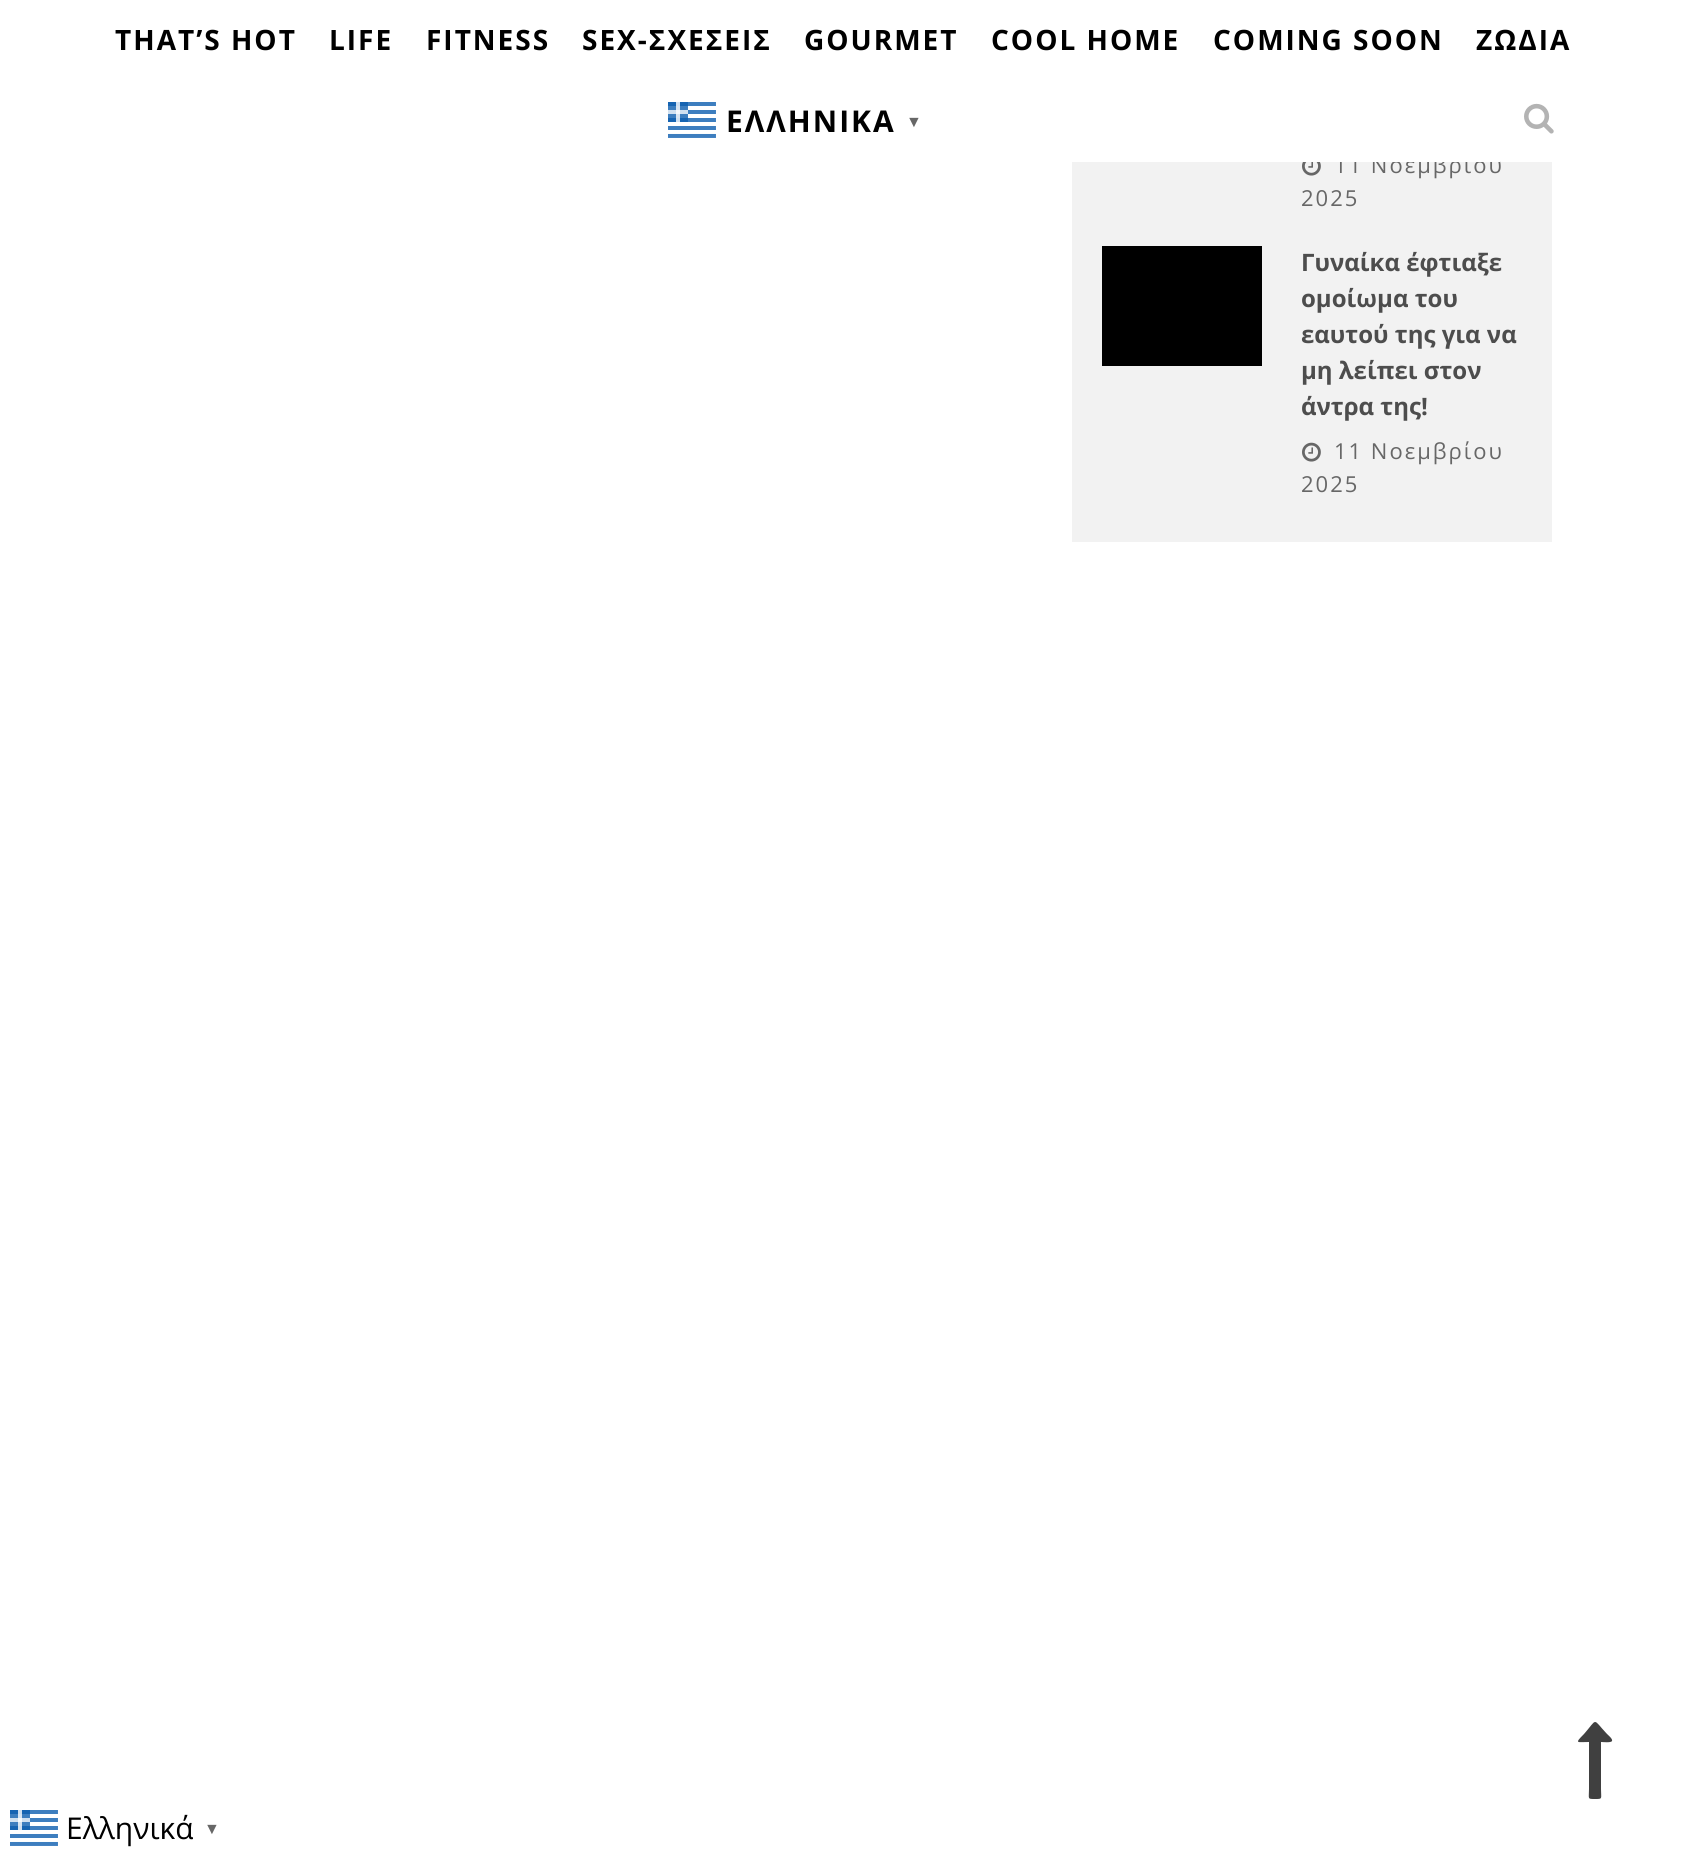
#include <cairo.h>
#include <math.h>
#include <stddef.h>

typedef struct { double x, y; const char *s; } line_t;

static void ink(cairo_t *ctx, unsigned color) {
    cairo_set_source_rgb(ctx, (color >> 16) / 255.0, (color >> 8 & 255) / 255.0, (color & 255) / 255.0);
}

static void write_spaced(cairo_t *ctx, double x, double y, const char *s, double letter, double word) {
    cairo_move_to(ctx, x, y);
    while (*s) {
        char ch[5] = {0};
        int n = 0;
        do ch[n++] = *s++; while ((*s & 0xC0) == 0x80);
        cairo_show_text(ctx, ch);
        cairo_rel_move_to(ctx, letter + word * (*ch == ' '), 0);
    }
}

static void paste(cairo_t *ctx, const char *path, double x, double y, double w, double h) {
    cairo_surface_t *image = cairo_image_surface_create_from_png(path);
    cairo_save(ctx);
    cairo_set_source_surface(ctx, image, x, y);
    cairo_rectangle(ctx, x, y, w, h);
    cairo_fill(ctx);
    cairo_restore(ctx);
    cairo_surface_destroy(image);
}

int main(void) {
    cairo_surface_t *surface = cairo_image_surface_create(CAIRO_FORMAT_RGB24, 1682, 1849);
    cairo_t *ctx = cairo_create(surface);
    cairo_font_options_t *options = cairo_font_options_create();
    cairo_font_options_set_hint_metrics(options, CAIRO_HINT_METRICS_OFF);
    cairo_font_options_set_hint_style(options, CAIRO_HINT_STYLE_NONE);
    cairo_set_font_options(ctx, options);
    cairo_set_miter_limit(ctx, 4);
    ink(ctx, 0xFFFFFF);
    cairo_paint(ctx);
    ink(ctx, 0xF2F2F2);
    cairo_rectangle(ctx, 1072, 162, 480, 380);
    cairo_fill(ctx);
    cairo_select_font_face(ctx, "Open Sans", CAIRO_FONT_SLANT_NORMAL, CAIRO_FONT_WEIGHT_NORMAL);
    cairo_set_font_size(ctx, 22);
    ink(ctx, 0x676767);
    write_spaced(ctx, 1334, 173, "11 Νοεμβρίου", 2, 0);
    ink(ctx, 0xFFFFFF);
    cairo_rectangle(ctx, 1335, 155, 165, 7);
    cairo_fill(ctx);
    cairo_select_font_face(ctx, "Open Sans", CAIRO_FONT_SLANT_NORMAL, CAIRO_FONT_WEIGHT_BOLD);
    cairo_set_font_size(ctx, 28);
    ink(ctx, 0x000000);
    {
        static const line_t items[] = {
            {115, 50, "THAT’S HOT"},
            {329, 50, "LIFE"},
            {426, 50, "FITNESS"},
            {582, 50, "SEX-ΣΧΕΣΕΙΣ"},
            {804, 50, "GOURMET"},
            {991, 50, "COOL HOME"},
            {1213, 50, "COMING SOON"},
            {1476, 50, "ΖΩΔΙΑ"},
        };
        for (size_t i = 0; i < sizeof items / sizeof *items; i++) {
            write_spaced(ctx, items[i].x, items[i].y, items[i].s, 2, 0);
        }
    }
    paste(ctx, "media/1.png", 668, 102, 48, 36);
    cairo_set_font_size(ctx, 30);
    write_spaced(ctx, 726, 132, "ΕΛΛΗΝΙΚΑ", 2, 0);
    cairo_select_font_face(ctx, "Liberation Sans", CAIRO_FONT_SLANT_NORMAL, CAIRO_FONT_WEIGHT_BOLD);
    cairo_set_font_size(ctx, 16);
    ink(ctx, 0x676767);
    write_spaced(ctx, 906, 127, "▼", 2, 0);
    paste(ctx, "media/2.png", 1524, 103, 30, 31);
    ink(ctx, 0x404040);
    cairo_new_path(ctx);
    cairo_move_to(ctx, 1612, 1741);
    cairo_curve_to(ctx, 1611, 1743, 1603, 1742, 1601, 1742);
    cairo_line_to(ctx, 1601, 1789);
    cairo_curve_to(ctx, 1601, 1799, 1603, 1799, 1595, 1799);
    cairo_curve_to(ctx, 1587, 1799, 1589, 1799, 1589, 1789);
    cairo_line_to(ctx, 1589, 1742);
    cairo_curve_to(ctx, 1577, 1742, 1574, 1744, 1584, 1734);
    cairo_curve_to(ctx, 1598, 1718, 1592, 1718, 1607, 1734);
    cairo_curve_to(ctx, 1608, 1735, 1613, 1739, 1612, 1741);
    cairo_close_path(ctx);
    cairo_fill(ctx);
    paste(ctx, "media/3.png", 1302, 162, 19, 14);
    cairo_select_font_face(ctx, "Open Sans", CAIRO_FONT_SLANT_NORMAL, CAIRO_FONT_WEIGHT_NORMAL);
    cairo_set_font_size(ctx, 22);
    ink(ctx, 0x676767);
    write_spaced(ctx, 1301, 206, "2025", 2, 0);
    ink(ctx, 0x000000);
    cairo_rectangle(ctx, 1102, 246, 160, 120);
    cairo_fill(ctx);
    cairo_select_font_face(ctx, "Open Sans", CAIRO_FONT_SLANT_NORMAL, CAIRO_FONT_WEIGHT_BOLD);
    cairo_set_font_size(ctx, 24);
    ink(ctx, 0x4D4D4D);
    {
        static const line_t items[] = {
            {1301, 271, "Γυναίκα έφτιαξε"},
            {1301, 307, "ομοίωμα του"},
            {1301, 343, "εαυτού της για να"},
            {1301, 379, "μη λείπει στον"},
            {1301, 415, "άντρα της!"},
        };
        for (size_t i = 0; i < sizeof items / sizeof *items; i++) {
            cairo_move_to(ctx, items[i].x, items[i].y);
            cairo_show_text(ctx, items[i].s);
        }
    }
    paste(ctx, "media/4.png", 1302, 442, 19, 20);
    cairo_select_font_face(ctx, "Open Sans", CAIRO_FONT_SLANT_NORMAL, CAIRO_FONT_WEIGHT_NORMAL);
    cairo_set_font_size(ctx, 22);
    ink(ctx, 0x676767);
    write_spaced(ctx, 1334, 459, "11 Νοεμβρίου", 2, 0);
    write_spaced(ctx, 1301, 492, "2025", 2, 0);
    paste(ctx, "media/1.png", 10, 1810, 48, 36);
    cairo_set_font_size(ctx, 30);
    ink(ctx, 0x000000);
    cairo_move_to(ctx, 66, 1839);
    cairo_show_text(ctx, "Ελληνικά");
    cairo_select_font_face(ctx, "Liberation Sans", CAIRO_FONT_SLANT_NORMAL, CAIRO_FONT_WEIGHT_BOLD);
    cairo_set_font_size(ctx, 16);
    ink(ctx, 0x676767);
    cairo_move_to(ctx, 204, 1834);
    cairo_show_text(ctx, "▼");
    cairo_surface_write_to_png(surface, "image.png");
    cairo_font_options_destroy(options);
    cairo_destroy(ctx);
    cairo_surface_destroy(surface);
    return 0;
}
